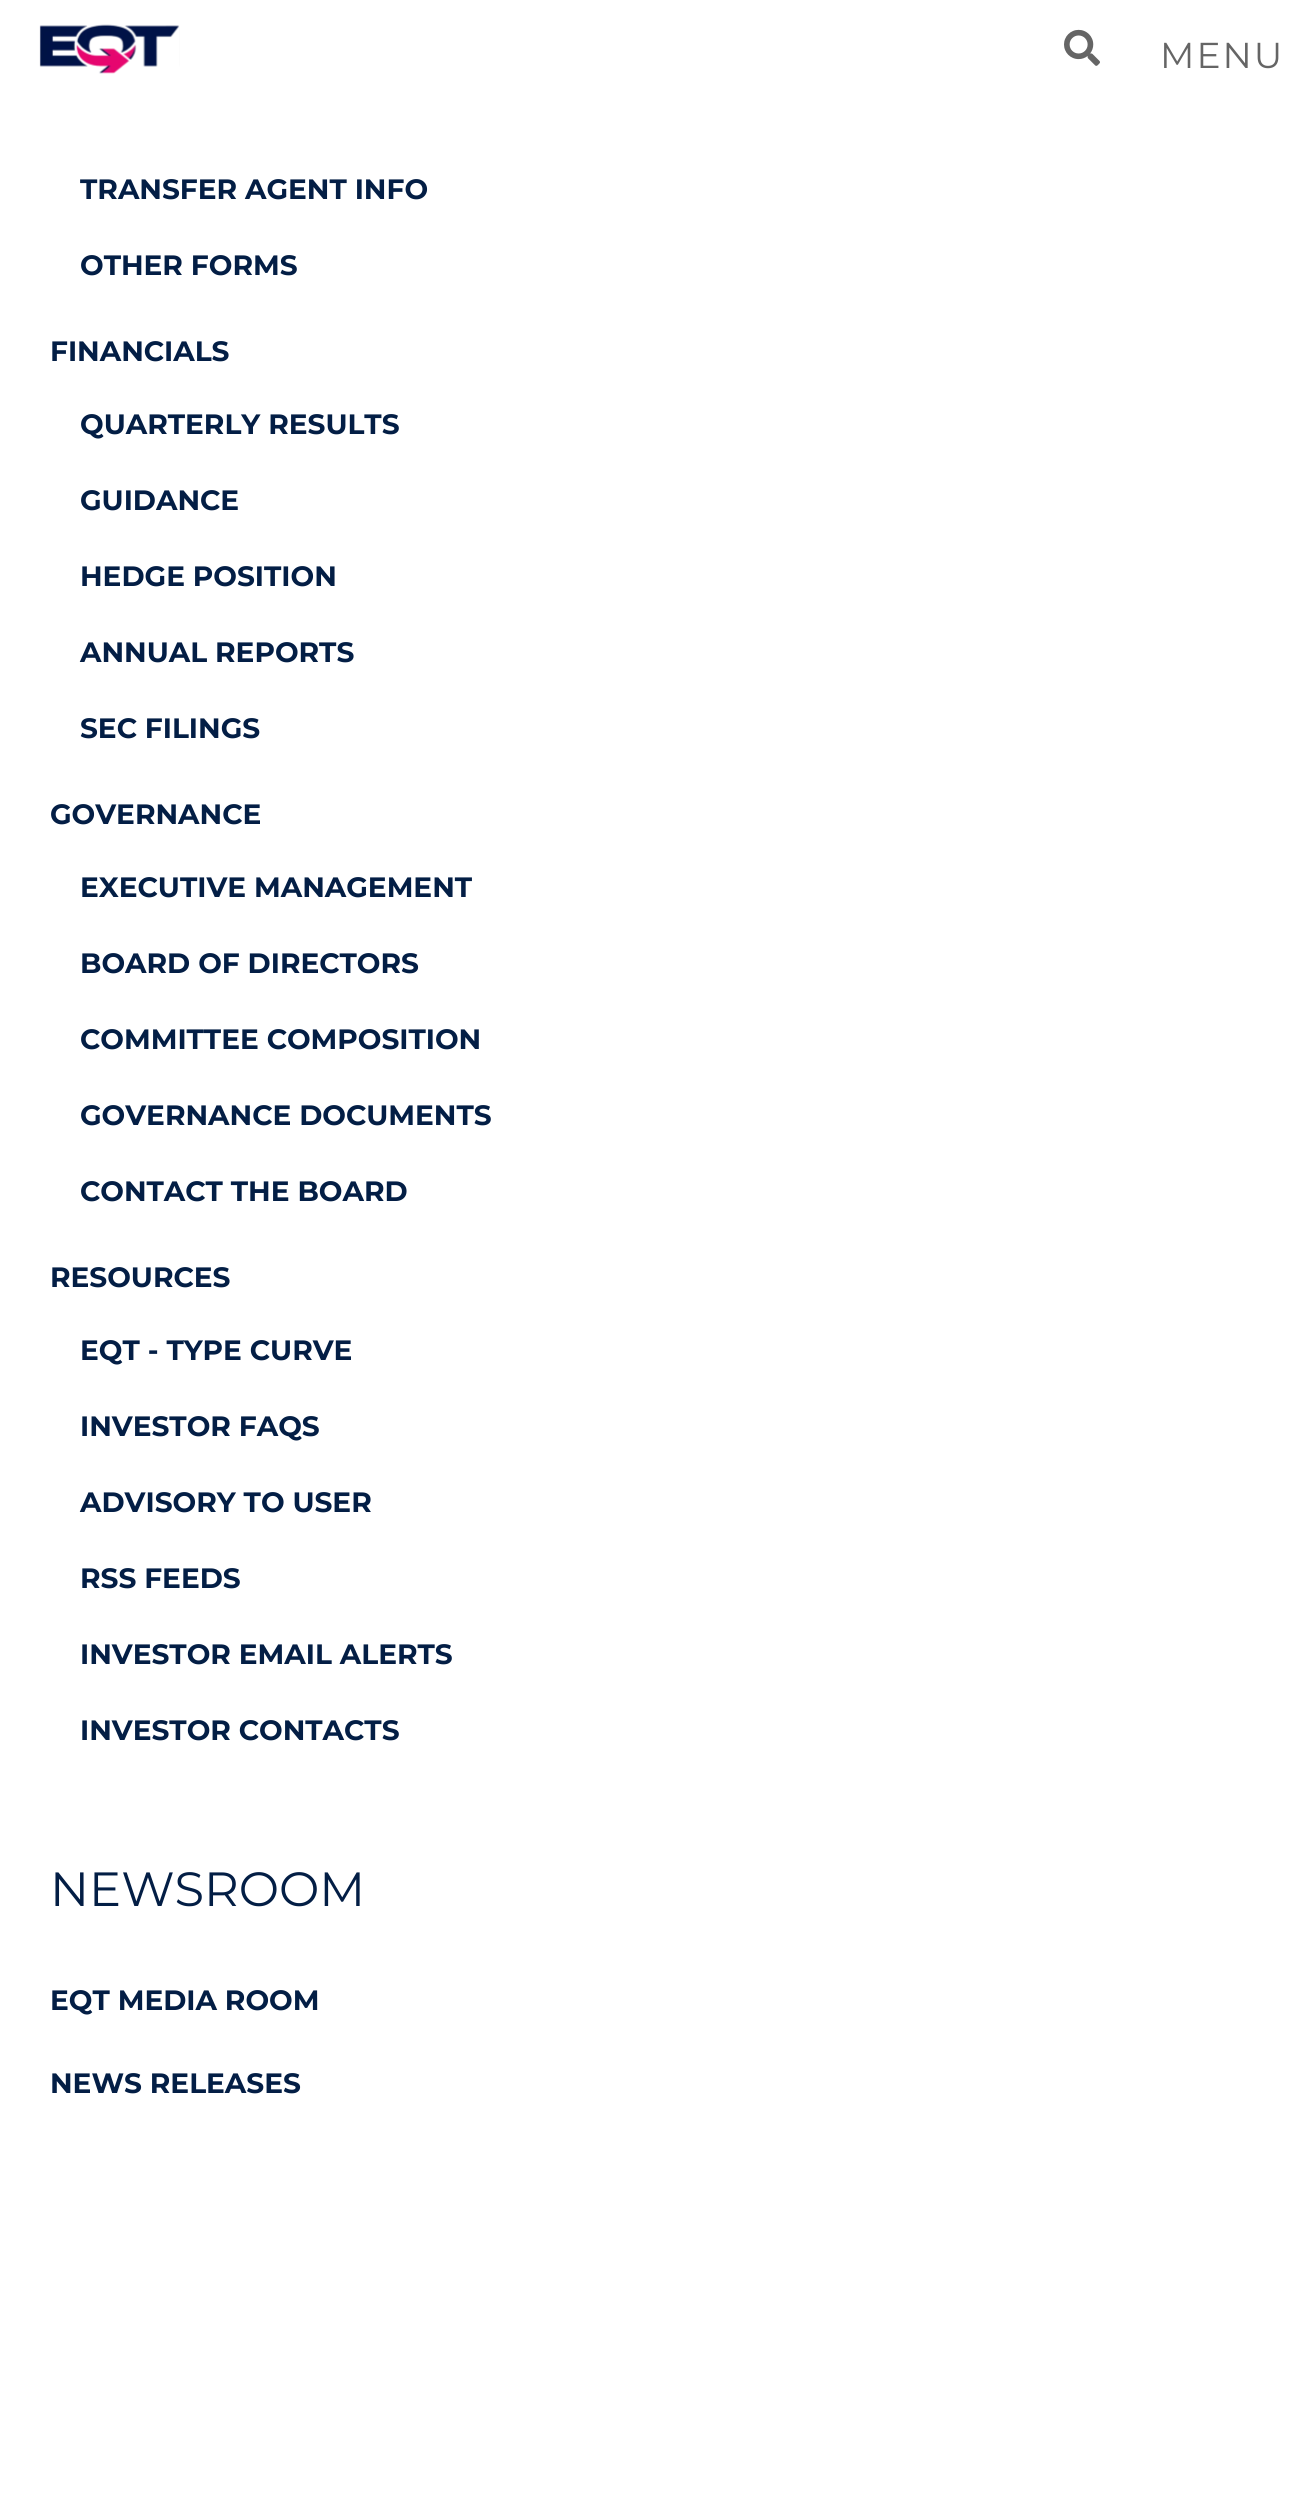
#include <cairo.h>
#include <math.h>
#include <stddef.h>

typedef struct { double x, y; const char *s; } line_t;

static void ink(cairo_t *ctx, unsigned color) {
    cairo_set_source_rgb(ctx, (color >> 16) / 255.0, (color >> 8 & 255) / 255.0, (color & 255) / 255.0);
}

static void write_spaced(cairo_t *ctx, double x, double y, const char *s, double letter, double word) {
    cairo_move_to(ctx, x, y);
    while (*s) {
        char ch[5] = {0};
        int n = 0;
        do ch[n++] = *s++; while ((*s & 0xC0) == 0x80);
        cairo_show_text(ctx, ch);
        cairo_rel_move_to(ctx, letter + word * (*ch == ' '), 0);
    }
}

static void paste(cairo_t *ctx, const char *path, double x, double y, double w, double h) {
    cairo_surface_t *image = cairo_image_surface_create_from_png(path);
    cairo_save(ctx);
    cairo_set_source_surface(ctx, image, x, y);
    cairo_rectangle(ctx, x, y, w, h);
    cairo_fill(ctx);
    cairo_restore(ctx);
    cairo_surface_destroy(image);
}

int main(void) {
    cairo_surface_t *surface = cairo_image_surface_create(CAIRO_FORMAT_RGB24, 1300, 2501);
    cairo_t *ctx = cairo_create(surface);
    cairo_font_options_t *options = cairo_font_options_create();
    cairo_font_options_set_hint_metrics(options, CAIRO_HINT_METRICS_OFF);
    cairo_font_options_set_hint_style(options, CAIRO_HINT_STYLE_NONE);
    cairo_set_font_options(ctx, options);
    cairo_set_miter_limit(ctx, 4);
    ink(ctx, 0xFFFFFF);
    cairo_paint(ctx);
    paste(ctx, "media/1.png", 39, 24, 141, 50);
    paste(ctx, "media/2.png", 1064, 29, 36, 37);
    cairo_select_font_face(ctx, "Montserrat", CAIRO_FONT_SLANT_NORMAL, CAIRO_FONT_WEIGHT_NORMAL);
    cairo_set_font_size(ctx, 36);
    ink(ctx, 0x656565);
    write_spaced(ctx, 1160, 68, "MENU", 2, 0);
    cairo_select_font_face(ctx, "Montserrat", CAIRO_FONT_SLANT_NORMAL, CAIRO_FONT_WEIGHT_BOLD);
    cairo_set_font_size(ctx, 28);
    ink(ctx, 0x031E45);
    {
        static const line_t items[] = {
            {80, 199, "TRANSFER AGENT INFO"},
            {80, 275, "OTHER FORMS"},
            {50, 361, "FINANCIALS"},
            {80, 434, "QUARTERLY RESULTS"},
            {80, 510, "GUIDANCE"},
            {80, 586, "HEDGE POSITION"},
            {80, 662, "ANNUAL REPORTS"},
            {80, 738, "SEC FILINGS"},
            {50, 824, "GOVERNANCE"},
            {80, 897, "EXECUTIVE MANAGEMENT"},
            {80, 973, "BOARD OF DIRECTORS"},
            {80, 1049, "COMMITTEE COMPOSITION"},
            {80, 1125, "GOVERNANCE DOCUMENTS"},
            {80, 1201, "CONTACT THE BOARD"},
            {50, 1287, "RESOURCES"},
            {80, 1360, "EQT - TYPE CURVE"},
            {80, 1436, "INVESTOR FAQS"},
            {80, 1512, "ADVISORY TO USER"},
            {80, 1588, "RSS FEEDS"},
            {80, 1664, "INVESTOR EMAIL ALERTS"},
            {80, 1740, "INVESTOR CONTACTS"},
        };
        for (size_t i = 0; i < sizeof items / sizeof *items; i++) {
            cairo_move_to(ctx, items[i].x, items[i].y);
            cairo_show_text(ctx, items[i].s);
        }
    }
    cairo_select_font_face(ctx, "Montserrat", CAIRO_FONT_SLANT_NORMAL, CAIRO_FONT_WEIGHT_NORMAL);
    cairo_set_font_size(ctx, 48);
    cairo_move_to(ctx, 50, 1906);
    cairo_show_text(ctx, "NEWSROOM");
    cairo_select_font_face(ctx, "Montserrat", CAIRO_FONT_SLANT_NORMAL, CAIRO_FONT_WEIGHT_BOLD);
    cairo_set_font_size(ctx, 28);
    cairo_move_to(ctx, 50, 2010);
    cairo_show_text(ctx, "EQT MEDIA ROOM");
    cairo_move_to(ctx, 50, 2093);
    cairo_show_text(ctx, "NEWS RELEASES");
    cairo_surface_write_to_png(surface, "image.png");
    cairo_font_options_destroy(options);
    cairo_destroy(ctx);
    cairo_surface_destroy(surface);
    return 0;
}
